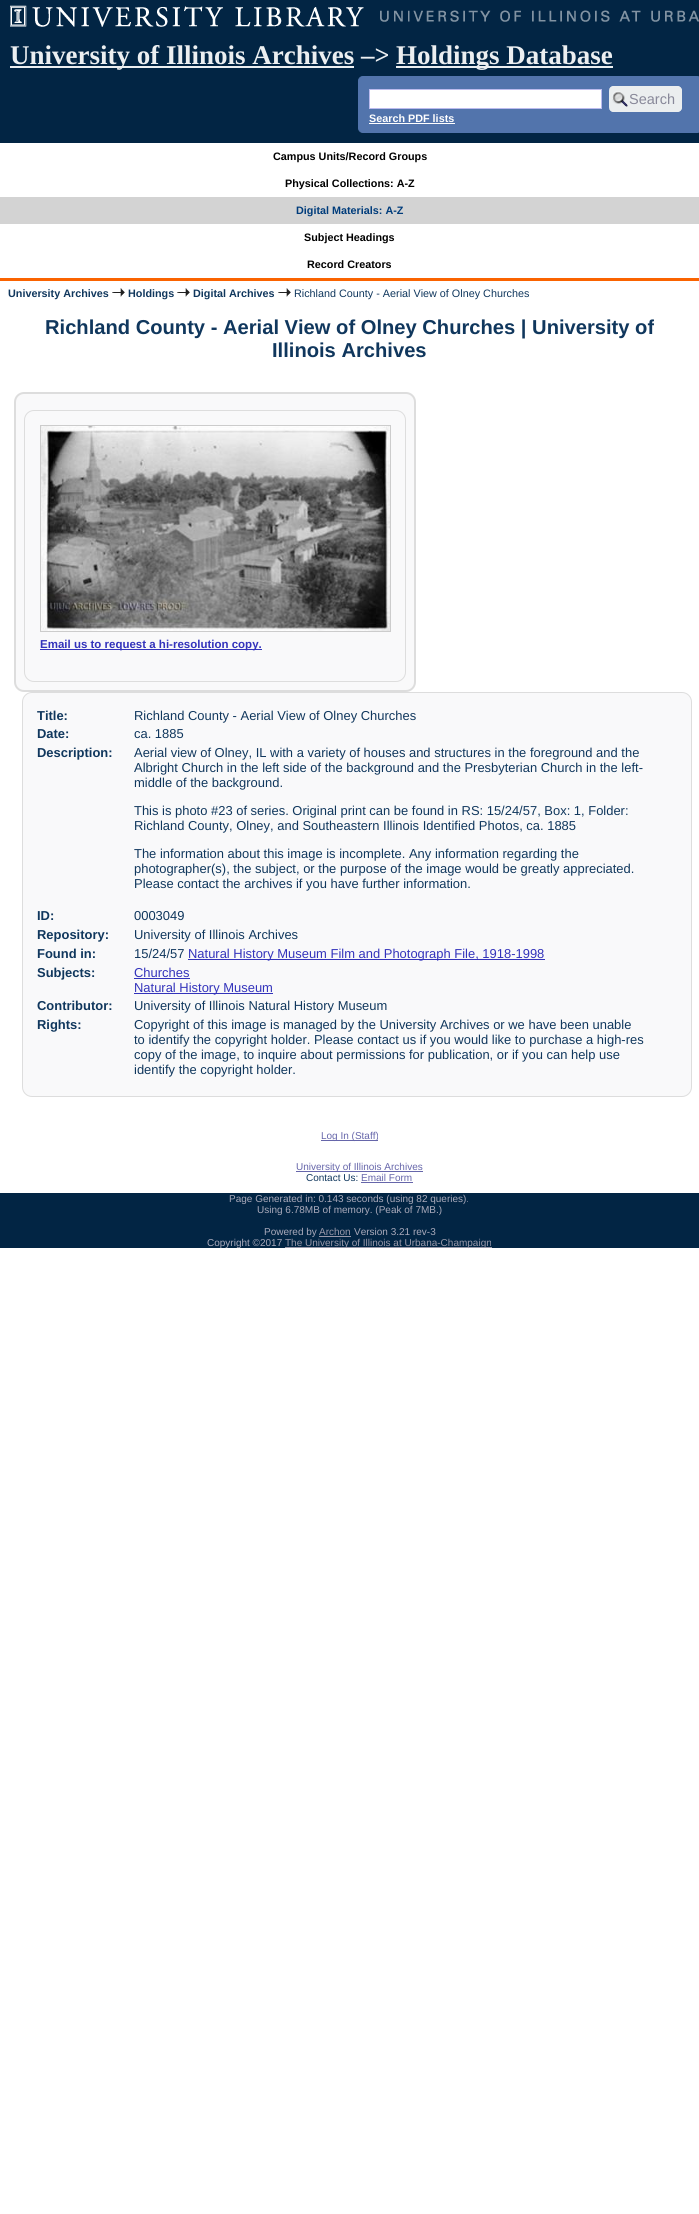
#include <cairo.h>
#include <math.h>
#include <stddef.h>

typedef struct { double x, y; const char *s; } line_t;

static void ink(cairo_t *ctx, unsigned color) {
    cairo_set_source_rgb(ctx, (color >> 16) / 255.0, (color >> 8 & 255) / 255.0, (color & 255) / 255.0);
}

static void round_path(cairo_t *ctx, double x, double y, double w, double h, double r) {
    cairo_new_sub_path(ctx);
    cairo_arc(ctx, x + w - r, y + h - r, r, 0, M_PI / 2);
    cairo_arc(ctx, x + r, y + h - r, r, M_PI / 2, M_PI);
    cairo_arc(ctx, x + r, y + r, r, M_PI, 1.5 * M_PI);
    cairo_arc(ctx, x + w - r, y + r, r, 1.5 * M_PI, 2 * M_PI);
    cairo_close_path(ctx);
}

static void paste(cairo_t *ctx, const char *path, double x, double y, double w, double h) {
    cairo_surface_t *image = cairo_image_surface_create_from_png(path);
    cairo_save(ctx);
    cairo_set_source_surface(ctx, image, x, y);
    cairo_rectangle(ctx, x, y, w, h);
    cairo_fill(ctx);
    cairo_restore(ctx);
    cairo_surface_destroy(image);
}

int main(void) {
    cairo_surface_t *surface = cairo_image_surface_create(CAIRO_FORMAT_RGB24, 699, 2214);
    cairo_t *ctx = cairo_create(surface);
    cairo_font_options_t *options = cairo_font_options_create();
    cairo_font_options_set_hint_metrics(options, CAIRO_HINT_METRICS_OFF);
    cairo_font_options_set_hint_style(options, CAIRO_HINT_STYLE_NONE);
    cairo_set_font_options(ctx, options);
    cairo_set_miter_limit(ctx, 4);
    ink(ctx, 0xFFFFFF);
    cairo_paint(ctx);
    ink(ctx, 0x022544);
    cairo_rectangle(ctx, 0, 0, 699, 143);
    cairo_fill(ctx);
    paste(ctx, "media/1.png", 10, 5, 689, 22);
    ink(ctx, 0xFA6300);
    cairo_rectangle(ctx, 0, 278, 699, 3);
    cairo_fill(ctx);
    ink(ctx, 0xECEFF1);
    cairo_rectangle(ctx, 10, 66, 344, 2);
    cairo_fill(ctx);
    cairo_select_font_face(ctx, "Liberation Serif", CAIRO_FONT_SLANT_NORMAL, CAIRO_FONT_WEIGHT_BOLD);
    cairo_set_font_size(ctx, 27);
    cairo_move_to(ctx, 10, 64);
    cairo_show_text(ctx, "University of Illinois Archives –>");
    cairo_rectangle(ctx, 396, 66, 217, 2);
    cairo_fill(ctx);
    cairo_move_to(ctx, 396, 64);
    cairo_show_text(ctx, "Holdings Database");
    ink(ctx, 0x5274AC);
    round_path(ctx, 358.5, 76.5, 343, 56, 4.5);
    cairo_fill_preserve(ctx);
    cairo_set_line_width(ctx, 1);
    cairo_stroke(ctx);
    ink(ctx, 0xFFFFFF);
    cairo_rectangle(ctx, 369.5, 89.5, 232, 19);
    cairo_fill_preserve(ctx);
    ink(ctx, 0xBBBBEE);
    cairo_stroke(ctx);
    ink(ctx, 0xEBEEEF);
    round_path(ctx, 609, 86, 73, 26, 5);
    cairo_fill(ctx);
    paste(ctx, "media/2.png", 612, 91, 16, 16);
    cairo_set_fill_rule(ctx, CAIRO_FILL_RULE_EVEN_ODD);
    cairo_new_path(ctx);
    cairo_move_to(ctx, 614, 86);
    cairo_line_to(ctx, 677, 86);
    cairo_curve_to(ctx, 680, 86, 682, 88, 682, 91);
    cairo_line_to(ctx, 682, 107);
    cairo_curve_to(ctx, 682, 110, 680, 112, 677, 112);
    cairo_line_to(ctx, 614, 112);
    cairo_curve_to(ctx, 611, 112, 609, 110, 609, 107);
    cairo_line_to(ctx, 609, 91);
    cairo_curve_to(ctx, 609, 88, 611, 86, 614, 86);
    cairo_close_path(ctx);
    cairo_move_to(ctx, 614, 87);
    cairo_line_to(ctx, 677, 87);
    cairo_curve_to(ctx, 679, 87, 681, 89, 681, 91);
    cairo_line_to(ctx, 681, 107);
    cairo_curve_to(ctx, 681, 109, 679, 111, 677, 111);
    cairo_line_to(ctx, 614, 111);
    cairo_curve_to(ctx, 611, 111, 609, 109, 609, 107);
    cairo_line_to(ctx, 609, 91);
    cairo_curve_to(ctx, 609, 89, 611, 87, 614, 87);
    cairo_close_path(ctx);
    cairo_fill(ctx);
    cairo_select_font_face(ctx, "Liberation Sans", CAIRO_FONT_SLANT_NORMAL, CAIRO_FONT_WEIGHT_NORMAL);
    cairo_set_font_size(ctx, 14.5);
    ink(ctx, 0x888899);
    cairo_move_to(ctx, 629, 104);
    cairo_show_text(ctx, "Search");
    cairo_select_font_face(ctx, "Liberation Sans", CAIRO_FONT_SLANT_NORMAL, CAIRO_FONT_WEIGHT_BOLD);
    cairo_set_font_size(ctx, 10.8);
    ink(ctx, 0xFFFFFF);
    cairo_move_to(ctx, 369, 122);
    cairo_show_text(ctx, "Search PDF lists");
    cairo_rectangle(ctx, 369, 123, 86, 1);
    cairo_fill(ctx);
    ink(ctx, 0x000000);
    cairo_move_to(ctx, 273, 160);
    cairo_show_text(ctx, "Campus Units/Record Groups");
    cairo_move_to(ctx, 285, 187);
    cairo_show_text(ctx, "Physical Collections: A-Z");
    ink(ctx, 0xD3D3D3);
    cairo_rectangle(ctx, 0, 197, 699, 27);
    cairo_fill(ctx);
    ink(ctx, 0x003C7B);
    cairo_move_to(ctx, 296, 214);
    cairo_show_text(ctx, "Digital Materials: A-Z");
    ink(ctx, 0x000000);
    cairo_move_to(ctx, 304, 241);
    cairo_show_text(ctx, "Subject Headings");
    cairo_move_to(ctx, 307, 268);
    cairo_show_text(ctx, "Record Creators");
    ink(ctx, 0x10375D);
    cairo_move_to(ctx, 8, 297);
    cairo_show_text(ctx, "University Archives");
    paste(ctx, "media/3.png", 112, 288, 13, 9);
    cairo_move_to(ctx, 128, 297);
    cairo_show_text(ctx, "Holdings");
    paste(ctx, "media/3.png", 177, 288, 13, 9);
    cairo_move_to(ctx, 193, 297);
    cairo_show_text(ctx, "Digital Archives");
    paste(ctx, "media/3.png", 278, 288, 13, 9);
    cairo_select_font_face(ctx, "Liberation Sans", CAIRO_FONT_SLANT_NORMAL, CAIRO_FONT_WEIGHT_NORMAL);
    cairo_move_to(ctx, 294, 297);
    cairo_show_text(ctx, "Richland County - Aerial View of Olney Churches");
    cairo_select_font_face(ctx, "Liberation Sans", CAIRO_FONT_SLANT_NORMAL, CAIRO_FONT_WEIGHT_BOLD);
    cairo_set_font_size(ctx, 20.15);
    cairo_move_to(ctx, 45, 334);
    cairo_show_text(ctx, "Richland County - Aerial View of Olney Churches | University of");
    cairo_move_to(ctx, 272, 357);
    cairo_show_text(ctx, "Illinois Archives");
    ink(ctx, 0xF9F9FA);
    round_path(ctx, 15, 393, 400, 298, 9);
    cairo_fill_preserve(ctx);
    ink(ctx, 0xDDDDDD);
    cairo_set_line_width(ctx, 2);
    cairo_stroke(ctx);
    round_path(ctx, 24.5, 410.5, 381, 271, 9.5);
    cairo_set_line_width(ctx, 1);
    cairo_stroke(ctx);
    cairo_rectangle(ctx, 40.5, 425.5, 350, 206);
    ink(ctx, 0xCCCCCC);
    cairo_stroke(ctx);
    paste(ctx, "media/4.png", 41, 426, 349, 205);
    ink(ctx, 0x3333BB);
    cairo_rectangle(ctx, 40, 649, 222, 1);
    cairo_fill(ctx);
    cairo_set_font_size(ctx, 11.5);
    cairo_move_to(ctx, 40, 648);
    cairo_show_text(ctx, "Email us to request a hi-resolution copy.");
    ink(ctx, 0xF9F9FA);
    round_path(ctx, 22.5, 692.5, 669, 404, 9.5);
    cairo_fill_preserve(ctx);
    ink(ctx, 0xDDDDDD);
    cairo_stroke(ctx);
    cairo_set_font_size(ctx, 12.95);
    ink(ctx, 0x10375D);
    cairo_move_to(ctx, 37, 720);
    cairo_show_text(ctx, "Title:");
    cairo_select_font_face(ctx, "Liberation Sans", CAIRO_FONT_SLANT_NORMAL, CAIRO_FONT_WEIGHT_NORMAL);
    cairo_move_to(ctx, 134, 720);
    cairo_show_text(ctx, "Richland County - Aerial View of Olney Churches");
    cairo_select_font_face(ctx, "Liberation Sans", CAIRO_FONT_SLANT_NORMAL, CAIRO_FONT_WEIGHT_BOLD);
    cairo_move_to(ctx, 37, 738);
    cairo_show_text(ctx, "Date:");
    cairo_select_font_face(ctx, "Liberation Sans", CAIRO_FONT_SLANT_NORMAL, CAIRO_FONT_WEIGHT_NORMAL);
    cairo_move_to(ctx, 134, 738);
    cairo_show_text(ctx, "ca. 1885");
    cairo_select_font_face(ctx, "Liberation Sans", CAIRO_FONT_SLANT_NORMAL, CAIRO_FONT_WEIGHT_BOLD);
    cairo_move_to(ctx, 37, 757);
    cairo_show_text(ctx, "Description:");
    cairo_select_font_face(ctx, "Liberation Sans", CAIRO_FONT_SLANT_NORMAL, CAIRO_FONT_WEIGHT_NORMAL);
    {
        static const line_t items[] = {
            {134, 757, "Aerial view of Olney, IL with a variety of houses and structures in the foreground and the"},
            {134, 772, "Albright Church in the left side of the background and the Presbyterian Church in the left-"},
            {134, 787, "middle of the background."},
            {134, 815, "This is photo #23 of series. Original print can be found in RS: 15/24/57, Box: 1, Folder:"},
            {134, 830, "Richland County, Olney, and Southeastern Illinois Identified Photos, ca. 1885"},
            {134, 858, "The information about this image is incomplete. Any information regarding the"},
            {134, 873, "photographer(s), the subject, or the purpose of the image would be greatly appreciated."},
            {134, 888, "Please contact the archives if you have further information."},
        };
        for (size_t i = 0; i < sizeof items / sizeof *items; i++) {
            cairo_move_to(ctx, items[i].x, items[i].y);
            cairo_show_text(ctx, items[i].s);
        }
    }
    cairo_select_font_face(ctx, "Liberation Sans", CAIRO_FONT_SLANT_NORMAL, CAIRO_FONT_WEIGHT_BOLD);
    cairo_move_to(ctx, 37, 920);
    cairo_show_text(ctx, "ID:");
    cairo_select_font_face(ctx, "Liberation Sans", CAIRO_FONT_SLANT_NORMAL, CAIRO_FONT_WEIGHT_NORMAL);
    cairo_move_to(ctx, 134, 920);
    cairo_show_text(ctx, "0003049");
    cairo_select_font_face(ctx, "Liberation Sans", CAIRO_FONT_SLANT_NORMAL, CAIRO_FONT_WEIGHT_BOLD);
    cairo_move_to(ctx, 37, 939);
    cairo_show_text(ctx, "Repository:");
    cairo_select_font_face(ctx, "Liberation Sans", CAIRO_FONT_SLANT_NORMAL, CAIRO_FONT_WEIGHT_NORMAL);
    cairo_move_to(ctx, 134, 939);
    cairo_show_text(ctx, "University of Illinois Archives");
    cairo_select_font_face(ctx, "Liberation Sans", CAIRO_FONT_SLANT_NORMAL, CAIRO_FONT_WEIGHT_BOLD);
    cairo_move_to(ctx, 37, 958);
    cairo_show_text(ctx, "Found in:");
    cairo_select_font_face(ctx, "Liberation Sans", CAIRO_FONT_SLANT_NORMAL, CAIRO_FONT_WEIGHT_NORMAL);
    cairo_move_to(ctx, 134, 958);
    cairo_show_text(ctx, "15/24/57");
    ink(ctx, 0x3333BB);
    cairo_rectangle(ctx, 188, 959, 357, 1);
    cairo_fill(ctx);
    cairo_move_to(ctx, 188, 958);
    cairo_show_text(ctx, "Natural History Museum Film and Photograph File, 1918-1998");
    cairo_select_font_face(ctx, "Liberation Sans", CAIRO_FONT_SLANT_NORMAL, CAIRO_FONT_WEIGHT_BOLD);
    ink(ctx, 0x10375D);
    cairo_move_to(ctx, 37, 977);
    cairo_show_text(ctx, "Subjects:");
    cairo_select_font_face(ctx, "Liberation Sans", CAIRO_FONT_SLANT_NORMAL, CAIRO_FONT_WEIGHT_NORMAL);
    ink(ctx, 0x3333BB);
    cairo_move_to(ctx, 134, 977);
    cairo_show_text(ctx, "Churches");
    cairo_rectangle(ctx, 134, 978, 56, 1);
    cairo_fill(ctx);
    cairo_rectangle(ctx, 134, 993, 139, 1);
    cairo_fill(ctx);
    cairo_move_to(ctx, 134, 992);
    cairo_show_text(ctx, "Natural History Museum");
    cairo_select_font_face(ctx, "Liberation Sans", CAIRO_FONT_SLANT_NORMAL, CAIRO_FONT_WEIGHT_BOLD);
    ink(ctx, 0x10375D);
    cairo_move_to(ctx, 37, 1010);
    cairo_show_text(ctx, "Contributor:");
    cairo_select_font_face(ctx, "Liberation Sans", CAIRO_FONT_SLANT_NORMAL, CAIRO_FONT_WEIGHT_NORMAL);
    cairo_move_to(ctx, 134, 1010);
    cairo_show_text(ctx, "University of Illinois Natural History Museum");
    cairo_select_font_face(ctx, "Liberation Sans", CAIRO_FONT_SLANT_NORMAL, CAIRO_FONT_WEIGHT_BOLD);
    cairo_move_to(ctx, 37, 1029);
    cairo_show_text(ctx, "Rights:");
    cairo_select_font_face(ctx, "Liberation Sans", CAIRO_FONT_SLANT_NORMAL, CAIRO_FONT_WEIGHT_NORMAL);
    {
        static const line_t items[] = {
            {134, 1029, "Copyright of this image is managed by the University Archives or we have been unable"},
            {134, 1044, "to identify the copyright holder. Please contact us if you would like to purchase a high-res"},
            {134, 1059, "copy of the image, to inquire about permissions for publication, or if you can help use"},
            {134, 1074, "identify the copyright holder."},
        };
        for (size_t i = 0; i < sizeof items / sizeof *items; i++) {
            cairo_move_to(ctx, items[i].x, items[i].y);
            cairo_show_text(ctx, items[i].s);
        }
    }
    ink(ctx, 0x6666AA);
    cairo_rectangle(ctx, 321, 1140, 57, 1);
    cairo_fill(ctx);
    cairo_set_font_size(ctx, 10);
    cairo_move_to(ctx, 321, 1139);
    cairo_show_text(ctx, "Log In (Staff)");
    cairo_rectangle(ctx, 296, 1171, 127, 1);
    cairo_fill(ctx);
    cairo_move_to(ctx, 296, 1170);
    cairo_show_text(ctx, "University of Illinois Archives");
    ink(ctx, 0x10375D);
    cairo_move_to(ctx, 306, 1181);
    cairo_show_text(ctx, "Contact Us:");
    ink(ctx, 0x6666AA);
    cairo_move_to(ctx, 361, 1181);
    cairo_show_text(ctx, "Email Form");
    cairo_rectangle(ctx, 361, 1182, 52, 1);
    cairo_fill(ctx);
    ink(ctx, 0x022544);
    cairo_rectangle(ctx, 0, 1193, 699, 55);
    cairo_fill(ctx);
    ink(ctx, 0xAAAABB);
    {
        static const line_t items[] = {
            {229, 1202, "Page Generated in: 0.143 seconds (using 82 queries)."},
            {257, 1213, "Using 6.78MB of memory. (Peak of 7MB.)"},
            {264, 1235, "Powered by"},
        };
        for (size_t i = 0; i < sizeof items / sizeof *items; i++) {
            cairo_move_to(ctx, items[i].x, items[i].y);
            cairo_show_text(ctx, items[i].s);
        }
    }
    ink(ctx, 0x9999AA);
    cairo_move_to(ctx, 319, 1235);
    cairo_show_text(ctx, "Archon");
    cairo_rectangle(ctx, 319, 1236, 32, 1);
    cairo_fill(ctx);
    ink(ctx, 0xAAAABB);
    cairo_move_to(ctx, 354, 1235);
    cairo_show_text(ctx, "Version 3.21 rev-3");
    cairo_move_to(ctx, 207, 1246);
    cairo_show_text(ctx, "Copyright ©2017");
    ink(ctx, 0x9999AA);
    cairo_rectangle(ctx, 285, 1247, 207, 1);
    cairo_fill(ctx);
    cairo_move_to(ctx, 285, 1246);
    cairo_show_text(ctx, "The University of Illinois at Urbana-Champaign");
    cairo_surface_write_to_png(surface, "image.png");
    cairo_font_options_destroy(options);
    cairo_destroy(ctx);
    cairo_surface_destroy(surface);
    return 0;
}
